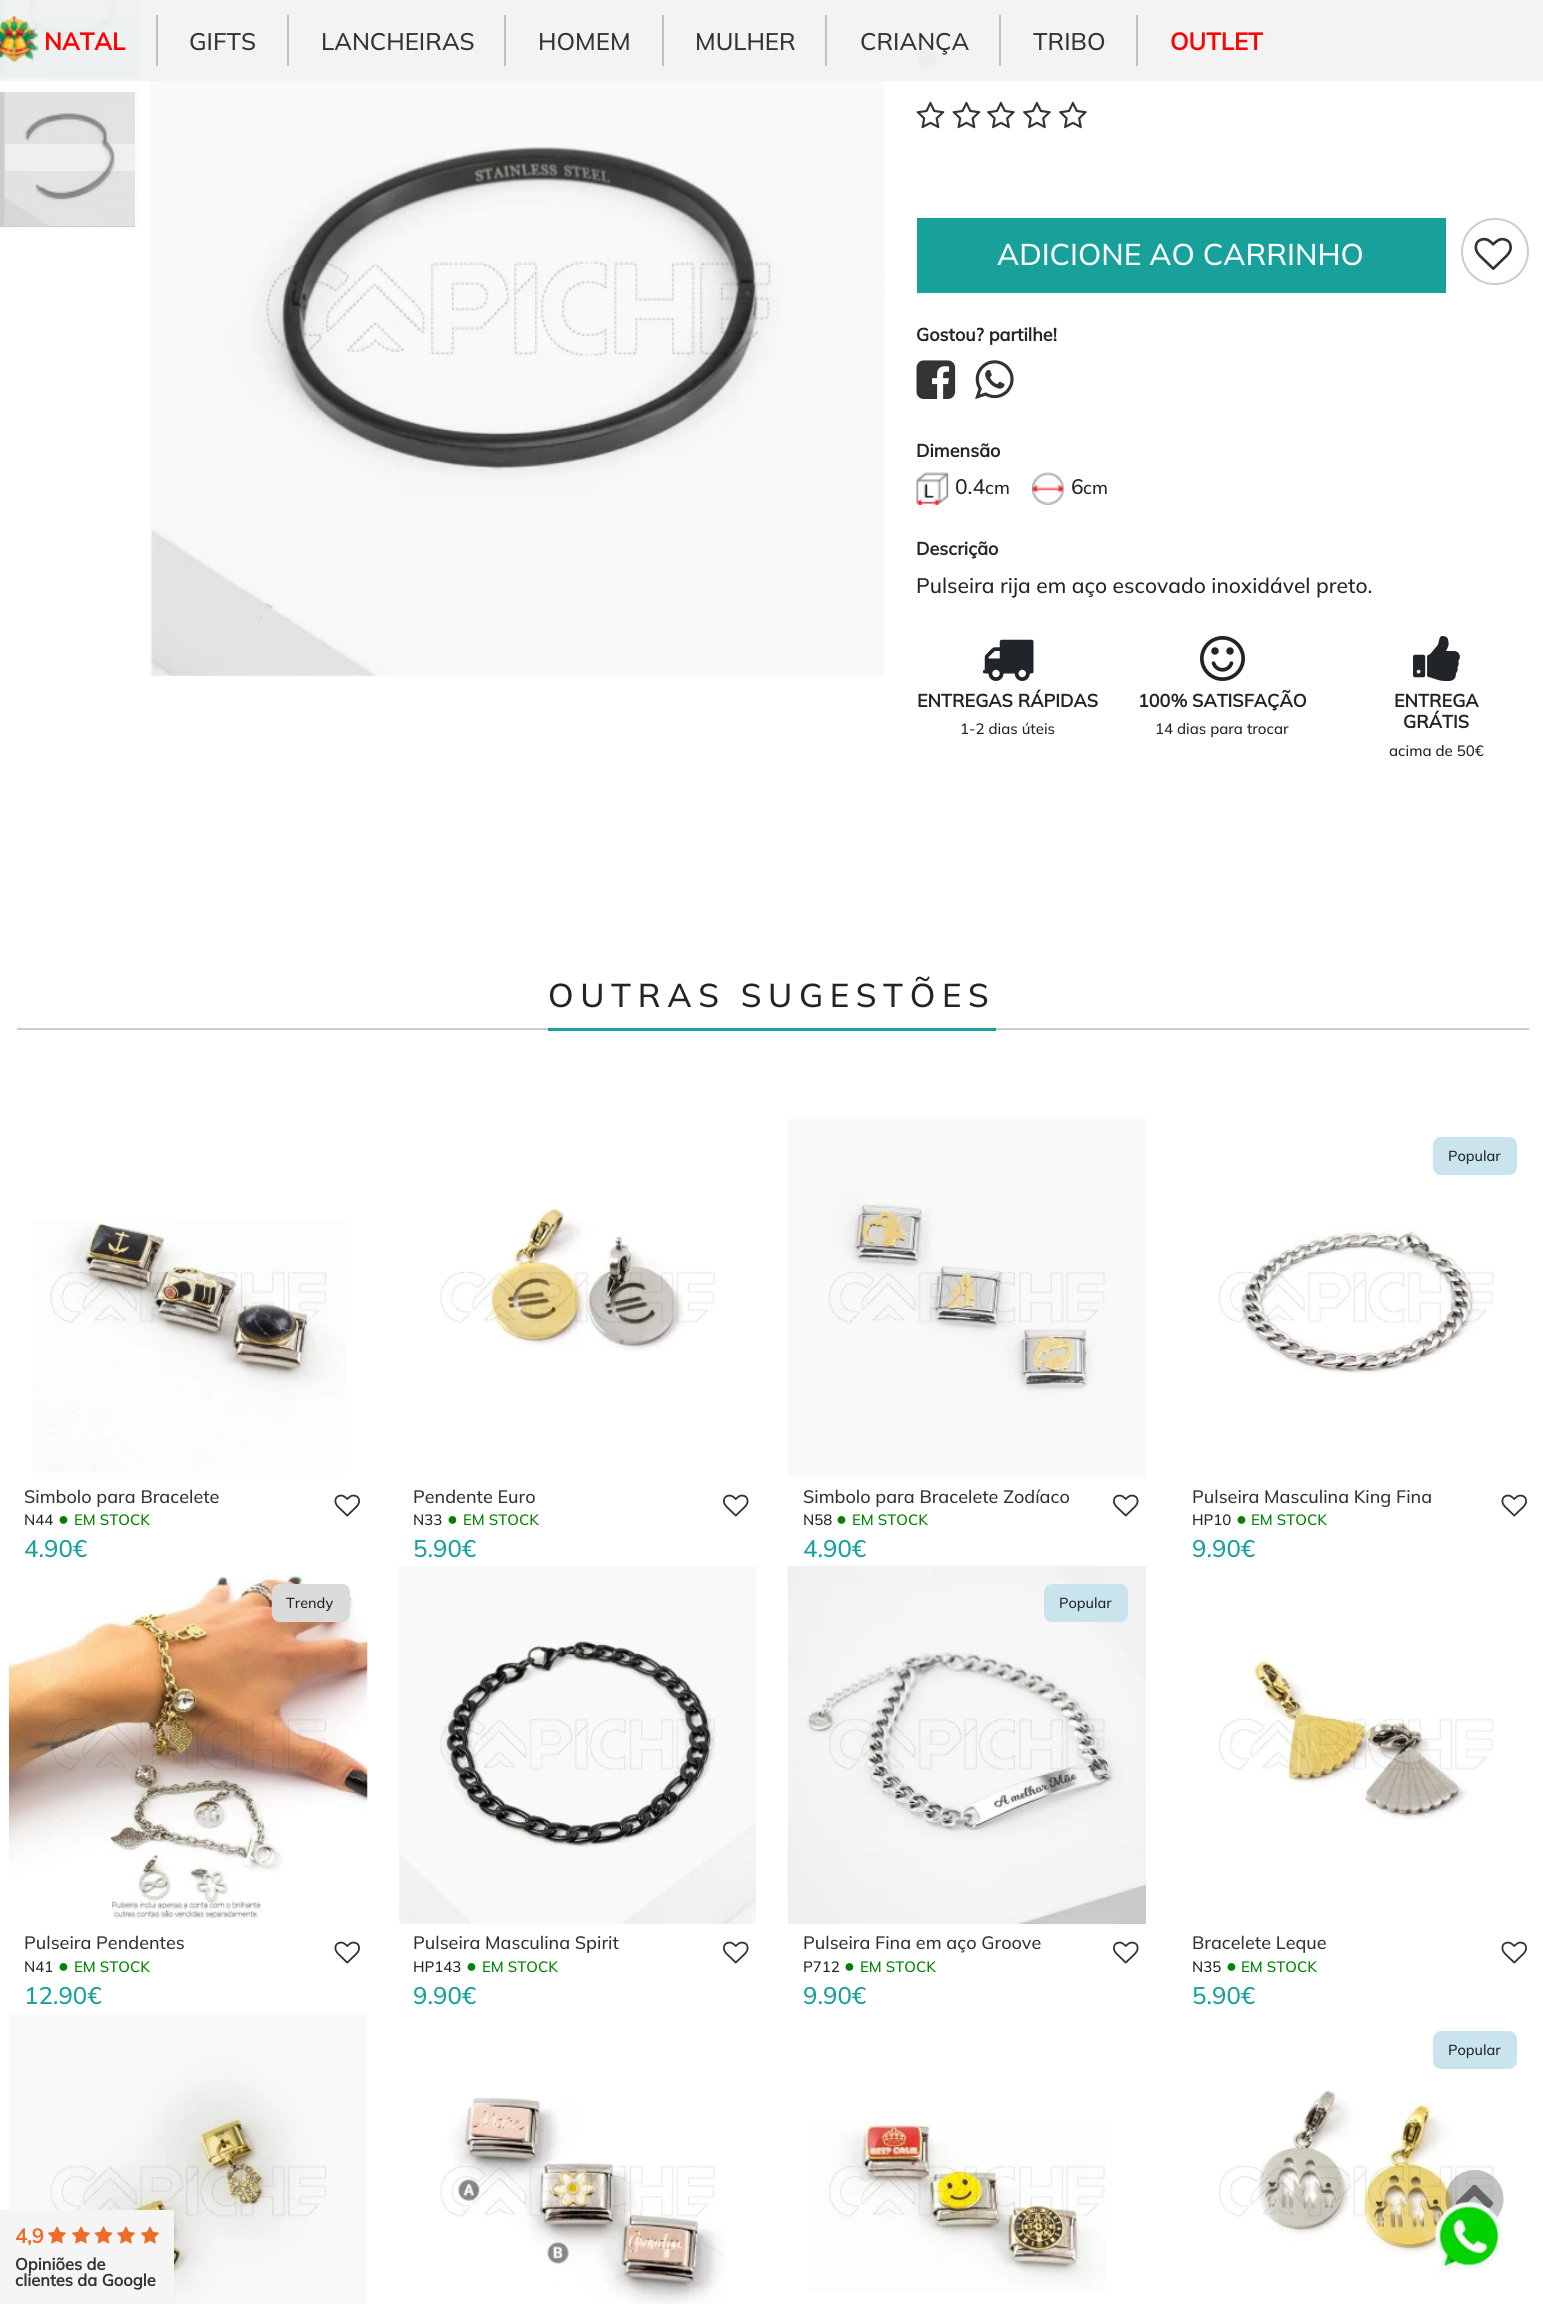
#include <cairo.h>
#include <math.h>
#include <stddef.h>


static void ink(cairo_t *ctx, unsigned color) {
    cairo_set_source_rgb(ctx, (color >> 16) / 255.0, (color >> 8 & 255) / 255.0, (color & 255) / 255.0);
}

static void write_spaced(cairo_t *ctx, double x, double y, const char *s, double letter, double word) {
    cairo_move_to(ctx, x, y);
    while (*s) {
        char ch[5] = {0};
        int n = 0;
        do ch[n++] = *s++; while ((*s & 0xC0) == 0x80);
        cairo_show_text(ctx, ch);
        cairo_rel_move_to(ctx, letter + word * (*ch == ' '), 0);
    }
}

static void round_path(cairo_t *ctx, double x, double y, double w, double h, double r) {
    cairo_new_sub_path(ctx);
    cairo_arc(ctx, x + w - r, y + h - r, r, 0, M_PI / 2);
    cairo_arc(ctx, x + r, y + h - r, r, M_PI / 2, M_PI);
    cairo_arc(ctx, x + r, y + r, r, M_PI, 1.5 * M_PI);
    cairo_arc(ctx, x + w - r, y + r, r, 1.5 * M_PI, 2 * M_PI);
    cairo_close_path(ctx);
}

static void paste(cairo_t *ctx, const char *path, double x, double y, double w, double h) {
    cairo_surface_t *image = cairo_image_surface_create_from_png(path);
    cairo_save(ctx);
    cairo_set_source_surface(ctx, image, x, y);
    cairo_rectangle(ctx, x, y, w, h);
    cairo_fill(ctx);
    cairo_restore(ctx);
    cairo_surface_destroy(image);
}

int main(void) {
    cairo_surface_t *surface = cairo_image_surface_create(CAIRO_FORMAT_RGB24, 1543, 2304);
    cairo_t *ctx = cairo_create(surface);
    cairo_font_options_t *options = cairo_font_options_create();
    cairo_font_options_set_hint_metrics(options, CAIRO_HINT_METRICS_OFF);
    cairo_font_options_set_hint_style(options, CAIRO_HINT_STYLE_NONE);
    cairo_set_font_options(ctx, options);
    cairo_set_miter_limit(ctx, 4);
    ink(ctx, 0xFFFFFF);
    cairo_paint(ctx);
    ink(ctx, 0x18A19A);
    cairo_rectangle(ctx, 0, 0, 140, 77);
    cairo_fill(ctx);
    ink(ctx, 0x8CD0CD);
    cairo_rectangle(ctx, 5, 0, 135, 21);
    cairo_fill(ctx);
    paste(ctx, "media/2.png", 4, 0, 136, 76);
    ink(ctx, 0xF9F9F9);
    cairo_rectangle(ctx, 150, 0, 1, 676);
    cairo_fill(ctx);
    paste(ctx, "media/4.png", 151, 0, 734, 676);
    paste(ctx, "media/5.png", 916, 48, 22, 21);
    cairo_set_source_rgba(ctx, 0.953, 0.953, 0.953, 0.95);
    cairo_rectangle(ctx, 0, 0, 1543, 81);
    cairo_fill(ctx);
    ink(ctx, 0xC1C1C1);
    cairo_rectangle(ctx, 156, 15, 2, 51);
    cairo_fill(ctx);
    paste(ctx, "media/1.png", 0, 16, 38, 46);
    cairo_select_font_face(ctx, "Mulish", CAIRO_FONT_SLANT_NORMAL, CAIRO_FONT_WEIGHT_BOLD);
    cairo_set_font_size(ctx, 24);
    ink(ctx, 0xFF0000);
    cairo_move_to(ctx, 44, 50);
    cairo_show_text(ctx, "NATAL");
    ink(ctx, 0xC1C1C1);
    cairo_rectangle(ctx, 287, 15, 2, 51);
    cairo_fill(ctx);
    cairo_select_font_face(ctx, "Mulish Medium", CAIRO_FONT_SLANT_NORMAL, CAIRO_FONT_WEIGHT_NORMAL);
    ink(ctx, 0x333333);
    cairo_move_to(ctx, 189, 50);
    cairo_show_text(ctx, "GIFTS");
    ink(ctx, 0xC1C1C1);
    cairo_rectangle(ctx, 504, 15, 2, 51);
    cairo_fill(ctx);
    ink(ctx, 0x333333);
    cairo_move_to(ctx, 321, 50);
    cairo_show_text(ctx, "LANCHEIRAS");
    ink(ctx, 0xC1C1C1);
    cairo_rectangle(ctx, 662, 15, 2, 51);
    cairo_fill(ctx);
    ink(ctx, 0x333333);
    cairo_move_to(ctx, 538, 50);
    cairo_show_text(ctx, "HOMEM");
    ink(ctx, 0xC1C1C1);
    cairo_rectangle(ctx, 825, 15, 2, 51);
    cairo_fill(ctx);
    ink(ctx, 0x333333);
    cairo_move_to(ctx, 695, 50);
    cairo_show_text(ctx, "MULHER");
    ink(ctx, 0xC1C1C1);
    cairo_rectangle(ctx, 999, 15, 2, 51);
    cairo_fill(ctx);
    ink(ctx, 0x333333);
    cairo_move_to(ctx, 860, 50);
    cairo_show_text(ctx, "CRIANÇA");
    ink(ctx, 0xC1C1C1);
    cairo_rectangle(ctx, 1136, 15, 2, 51);
    cairo_fill(ctx);
    ink(ctx, 0x333333);
    cairo_move_to(ctx, 1033, 50);
    cairo_show_text(ctx, "TRIBO");
    cairo_select_font_face(ctx, "Mulish", CAIRO_FONT_SLANT_NORMAL, CAIRO_FONT_WEIGHT_BOLD);
    ink(ctx, 0xFF0000);
    cairo_move_to(ctx, 1170, 50);
    cairo_show_text(ctx, "OUTLET");
    ink(ctx, 0xCCCCCC);
    cairo_rectangle(ctx, 0, 92, 135, 135);
    cairo_fill(ctx);
    ink(ctx, 0xE6E6E6);
    cairo_rectangle(ctx, 5, 144, 130, 27);
    cairo_fill(ctx);
    paste(ctx, "media/3.png", 4, 91, 135, 135);
    paste(ctx, "media/6.png", 916, 101, 29, 28);
    paste(ctx, "media/6.png", 952, 101, 29, 28);
    paste(ctx, "media/7.png", 987, 101, 28, 28);
    paste(ctx, "media/7.png", 1023, 101, 28, 28);
    paste(ctx, "media/7.png", 1059, 101, 28, 28);
    ink(ctx, 0x18A19A);
    cairo_rectangle(ctx, 917, 218, 529, 75);
    cairo_fill(ctx);
    cairo_select_font_face(ctx, "Mulish Medium", CAIRO_FONT_SLANT_NORMAL, CAIRO_FONT_WEIGHT_NORMAL);
    cairo_set_font_size(ctx, 30);
    ink(ctx, 0xFFFFFF);
    cairo_move_to(ctx, 997, 265);
    cairo_show_text(ctx, "ADICIONE AO CARRINHO");
    round_path(ctx, 1462, 219, 66, 65, 32.5);
    ink(ctx, 0xCCCCCC);
    cairo_stroke(ctx);
    paste(ctx, "media/8.png", 1474, 237, 38, 33);
    cairo_select_font_face(ctx, "Mulish", CAIRO_FONT_SLANT_NORMAL, CAIRO_FONT_WEIGHT_BOLD);
    cairo_set_font_size(ctx, 18);
    ink(ctx, 0x212529);
    cairo_move_to(ctx, 916, 341);
    cairo_show_text(ctx, "Gostou? partilhe!");
    paste(ctx, "media/9.png", 916, 360, 40, 39);
    paste(ctx, "media/10.png", 975, 360, 39, 40);
    cairo_move_to(ctx, 916, 457);
    cairo_show_text(ctx, "Dimensão");
    paste(ctx, "media/11.png", 916, 472, 33, 33);
    cairo_select_font_face(ctx, "Mulish Medium", CAIRO_FONT_SLANT_NORMAL, CAIRO_FONT_WEIGHT_NORMAL);
    cairo_set_font_size(ctx, 21);
    cairo_move_to(ctx, 955, 494);
    cairo_show_text(ctx, "0.4");
    cairo_set_font_size(ctx, 18);
    cairo_move_to(ctx, 985, 494);
    cairo_show_text(ctx, "cm");
    paste(ctx, "media/12.png", 1032, 472, 32, 33);
    cairo_set_font_size(ctx, 21);
    cairo_move_to(ctx, 1071, 494);
    cairo_show_text(ctx, "6");
    cairo_set_font_size(ctx, 18);
    cairo_move_to(ctx, 1083, 494);
    cairo_show_text(ctx, "cm");
    cairo_select_font_face(ctx, "Mulish", CAIRO_FONT_SLANT_NORMAL, CAIRO_FONT_WEIGHT_BOLD);
    cairo_move_to(ctx, 916, 555);
    cairo_show_text(ctx, "Descrição");
    cairo_select_font_face(ctx, "Mulish Medium", CAIRO_FONT_SLANT_NORMAL, CAIRO_FONT_WEIGHT_NORMAL);
    cairo_set_font_size(ctx, 21);
    cairo_move_to(ctx, 916, 593);
    cairo_show_text(ctx, "Pulseira rija em aço escovado inoxidável preto.");
    paste(ctx, "media/13.png", 982, 639, 52, 42);
    cairo_select_font_face(ctx, "Mulish", CAIRO_FONT_SLANT_NORMAL, CAIRO_FONT_WEIGHT_BOLD);
    cairo_set_font_size(ctx, 18);
    cairo_move_to(ctx, 917, 707);
    cairo_show_text(ctx, "ENTREGAS RÁPIDAS");
    cairo_select_font_face(ctx, "Mulish Medium", CAIRO_FONT_SLANT_NORMAL, CAIRO_FONT_WEIGHT_NORMAL);
    cairo_set_font_size(ctx, 15);
    cairo_move_to(ctx, 960, 734);
    cairo_show_text(ctx, "1-2 dias úteis");
    paste(ctx, "media/14.png", 1200, 636, 45, 45);
    cairo_select_font_face(ctx, "Mulish", CAIRO_FONT_SLANT_NORMAL, CAIRO_FONT_WEIGHT_BOLD);
    cairo_set_font_size(ctx, 18);
    cairo_move_to(ctx, 1138, 707);
    cairo_show_text(ctx, "100% SATISFAÇÃO");
    cairo_select_font_face(ctx, "Mulish Medium", CAIRO_FONT_SLANT_NORMAL, CAIRO_FONT_WEIGHT_NORMAL);
    cairo_set_font_size(ctx, 15);
    cairo_move_to(ctx, 1155, 734);
    cairo_show_text(ctx, "14 dias para trocar");
    paste(ctx, "media/15.png", 1413, 636, 47, 45);
    cairo_select_font_face(ctx, "Mulish", CAIRO_FONT_SLANT_NORMAL, CAIRO_FONT_WEIGHT_BOLD);
    cairo_set_font_size(ctx, 18);
    cairo_move_to(ctx, 1394, 707);
    cairo_show_text(ctx, "ENTREGA");
    cairo_move_to(ctx, 1403, 728);
    cairo_show_text(ctx, "GRÁTIS");
    cairo_select_font_face(ctx, "Mulish Medium", CAIRO_FONT_SLANT_NORMAL, CAIRO_FONT_WEIGHT_NORMAL);
    cairo_set_font_size(ctx, 15);
    cairo_move_to(ctx, 1389, 756);
    cairo_show_text(ctx, "acima de 50€");
    ink(ctx, 0xCCCCCC);
    cairo_rectangle(ctx, 17, 1028, 1512, 2);
    cairo_fill(ctx);
    cairo_set_font_size(ctx, 33);
    ink(ctx, 0x212529);
    write_spaced(ctx, 548, 1007, "OUTRAS SUGESTÕES", 6.6, 0);
    ink(ctx, 0x18A19A);
    cairo_rectangle(ctx, 548, 1028, 448, 3);
    cairo_fill(ctx);
    paste(ctx, "media/16.png", 32, 1221, 314, 252);
    cairo_set_font_size(ctx, 18);
    ink(ctx, 0x333333);
    cairo_move_to(ctx, 24, 1503);
    cairo_show_text(ctx, "Simbolo para Bracelete");
    cairo_set_font_size(ctx, 15);
    ink(ctx, 0x212529);
    cairo_move_to(ctx, 24, 1525);
    cairo_show_text(ctx, "N44");
    cairo_select_font_face(ctx, "Liberation Sans", CAIRO_FONT_SLANT_NORMAL, CAIRO_FONT_WEIGHT_NORMAL);
    cairo_set_font_size(ctx, 18);
    ink(ctx, 0x008000);
    cairo_move_to(ctx, 58, 1525);
    cairo_show_text(ctx, "●");
    cairo_select_font_face(ctx, "Mulish Medium", CAIRO_FONT_SLANT_NORMAL, CAIRO_FONT_WEIGHT_NORMAL);
    cairo_set_font_size(ctx, 15);
    cairo_move_to(ctx, 74, 1525);
    cairo_show_text(ctx, "EM STOCK");
    paste(ctx, "media/17.png", 334, 1494, 26, 23);
    cairo_set_font_size(ctx, 24);
    ink(ctx, 0x18A19A);
    cairo_move_to(ctx, 24, 1557);
    cairo_show_text(ctx, "4.90€");
    paste(ctx, "media/18.png", 440, 1208, 275, 144);
    cairo_set_font_size(ctx, 18);
    ink(ctx, 0x333333);
    cairo_move_to(ctx, 413, 1503);
    cairo_show_text(ctx, "Pendente Euro");
    cairo_set_font_size(ctx, 15);
    ink(ctx, 0x212529);
    cairo_move_to(ctx, 413, 1525);
    cairo_show_text(ctx, "N33");
    cairo_select_font_face(ctx, "Liberation Sans", CAIRO_FONT_SLANT_NORMAL, CAIRO_FONT_WEIGHT_NORMAL);
    cairo_set_font_size(ctx, 18);
    ink(ctx, 0x008000);
    cairo_move_to(ctx, 447, 1525);
    cairo_show_text(ctx, "●");
    cairo_select_font_face(ctx, "Mulish Medium", CAIRO_FONT_SLANT_NORMAL, CAIRO_FONT_WEIGHT_NORMAL);
    cairo_set_font_size(ctx, 15);
    cairo_move_to(ctx, 463, 1525);
    cairo_show_text(ctx, "EM STOCK");
    paste(ctx, "media/19.png", 723, 1494, 26, 23);
    cairo_set_font_size(ctx, 24);
    ink(ctx, 0x18A19A);
    cairo_move_to(ctx, 413, 1557);
    cairo_show_text(ctx, "5.90€");
    paste(ctx, "media/20.png", 788, 1119, 358, 358);
    cairo_set_font_size(ctx, 18);
    ink(ctx, 0x333333);
    cairo_move_to(ctx, 803, 1503);
    cairo_show_text(ctx, "Simbolo para Bracelete Zodíaco");
    cairo_set_font_size(ctx, 15);
    ink(ctx, 0x212529);
    cairo_move_to(ctx, 803, 1525);
    cairo_show_text(ctx, "N58");
    cairo_select_font_face(ctx, "Liberation Sans", CAIRO_FONT_SLANT_NORMAL, CAIRO_FONT_WEIGHT_NORMAL);
    cairo_set_font_size(ctx, 18);
    ink(ctx, 0x008000);
    cairo_move_to(ctx, 836, 1525);
    cairo_show_text(ctx, "●");
    cairo_select_font_face(ctx, "Mulish Medium", CAIRO_FONT_SLANT_NORMAL, CAIRO_FONT_WEIGHT_NORMAL);
    cairo_set_font_size(ctx, 15);
    cairo_move_to(ctx, 852, 1525);
    cairo_show_text(ctx, "EM STOCK");
    paste(ctx, "media/19.png", 1113, 1494, 26, 23);
    cairo_set_font_size(ctx, 24);
    ink(ctx, 0x18A19A);
    cairo_move_to(ctx, 803, 1557);
    cairo_show_text(ctx, "4.90€");
    ink(ctx, 0xCAE4ED);
    round_path(ctx, 1433, 1137, 84, 38, 8);
    cairo_fill(ctx);
    cairo_set_font_size(ctx, 14.5);
    ink(ctx, 0x212529);
    cairo_move_to(ctx, 1448, 1161);
    cairo_show_text(ctx, "Popular");
    paste(ctx, "media/21.png", 1218, 1230, 276, 144);
    cairo_set_font_size(ctx, 18);
    ink(ctx, 0x333333);
    cairo_move_to(ctx, 1192, 1503);
    cairo_show_text(ctx, "Pulseira Masculina King Fina");
    cairo_set_font_size(ctx, 15);
    ink(ctx, 0x212529);
    cairo_move_to(ctx, 1192, 1525);
    cairo_show_text(ctx, "HP10");
    cairo_select_font_face(ctx, "Liberation Sans", CAIRO_FONT_SLANT_NORMAL, CAIRO_FONT_WEIGHT_NORMAL);
    cairo_set_font_size(ctx, 18);
    ink(ctx, 0x008000);
    cairo_move_to(ctx, 1236, 1525);
    cairo_show_text(ctx, "●");
    cairo_select_font_face(ctx, "Mulish Medium", CAIRO_FONT_SLANT_NORMAL, CAIRO_FONT_WEIGHT_NORMAL);
    cairo_set_font_size(ctx, 15);
    cairo_move_to(ctx, 1251, 1525);
    cairo_show_text(ctx, "EM STOCK");
    paste(ctx, "media/17.png", 1501, 1494, 26, 23);
    cairo_set_font_size(ctx, 24);
    ink(ctx, 0x18A19A);
    cairo_move_to(ctx, 1192, 1557);
    cairo_show_text(ctx, "9.90€");
    paste(ctx, "media/22.png", 9, 1575, 359, 344);
    ink(ctx, 0xDBDBDB);
    round_path(ctx, 272, 1584, 78, 38, 8);
    cairo_fill(ctx);
    cairo_set_font_size(ctx, 14.5);
    ink(ctx, 0x212529);
    cairo_move_to(ctx, 286, 1608);
    cairo_show_text(ctx, "Trendy");
    cairo_set_font_size(ctx, 18);
    ink(ctx, 0x333333);
    cairo_move_to(ctx, 24, 1949);
    cairo_show_text(ctx, "Pulseira Pendentes");
    cairo_set_font_size(ctx, 15);
    ink(ctx, 0x212529);
    cairo_move_to(ctx, 24, 1972);
    cairo_show_text(ctx, "N41");
    cairo_select_font_face(ctx, "Liberation Sans", CAIRO_FONT_SLANT_NORMAL, CAIRO_FONT_WEIGHT_NORMAL);
    cairo_set_font_size(ctx, 18);
    ink(ctx, 0x008000);
    cairo_move_to(ctx, 58, 1972);
    cairo_show_text(ctx, "●");
    cairo_select_font_face(ctx, "Mulish Medium", CAIRO_FONT_SLANT_NORMAL, CAIRO_FONT_WEIGHT_NORMAL);
    cairo_set_font_size(ctx, 15);
    cairo_move_to(ctx, 74, 1972);
    cairo_show_text(ctx, "EM STOCK");
    paste(ctx, "media/17.png", 334, 1941, 26, 23);
    cairo_set_font_size(ctx, 24);
    ink(ctx, 0x18A19A);
    cairo_move_to(ctx, 24, 2004);
    cairo_show_text(ctx, "12.90€");
    paste(ctx, "media/23.png", 399, 1566, 357, 358);
    cairo_set_font_size(ctx, 18);
    ink(ctx, 0x333333);
    cairo_move_to(ctx, 413, 1949);
    cairo_show_text(ctx, "Pulseira Masculina Spirit");
    cairo_set_font_size(ctx, 15);
    ink(ctx, 0x212529);
    cairo_move_to(ctx, 413, 1972);
    cairo_show_text(ctx, "HP143");
    cairo_select_font_face(ctx, "Liberation Sans", CAIRO_FONT_SLANT_NORMAL, CAIRO_FONT_WEIGHT_NORMAL);
    cairo_set_font_size(ctx, 18);
    ink(ctx, 0x008000);
    cairo_move_to(ctx, 466, 1972);
    cairo_show_text(ctx, "●");
    cairo_select_font_face(ctx, "Mulish Medium", CAIRO_FONT_SLANT_NORMAL, CAIRO_FONT_WEIGHT_NORMAL);
    cairo_set_font_size(ctx, 15);
    cairo_move_to(ctx, 482, 1972);
    cairo_show_text(ctx, "EM STOCK");
    paste(ctx, "media/19.png", 723, 1941, 26, 23);
    cairo_set_font_size(ctx, 24);
    ink(ctx, 0x18A19A);
    cairo_move_to(ctx, 413, 2004);
    cairo_show_text(ctx, "9.90€");
    paste(ctx, "media/24.png", 787, 1565, 359, 359);
    ink(ctx, 0xCAE4ED);
    round_path(ctx, 1044, 1584, 84, 38, 8);
    cairo_fill(ctx);
    cairo_set_font_size(ctx, 14.5);
    ink(ctx, 0x212529);
    cairo_move_to(ctx, 1059, 1608);
    cairo_show_text(ctx, "Popular");
    cairo_set_font_size(ctx, 18);
    ink(ctx, 0x333333);
    cairo_move_to(ctx, 803, 1949);
    cairo_show_text(ctx, "Pulseira Fina em aço Groove");
    cairo_set_font_size(ctx, 15);
    ink(ctx, 0x212529);
    cairo_move_to(ctx, 803, 1972);
    cairo_show_text(ctx, "P712");
    cairo_select_font_face(ctx, "Liberation Sans", CAIRO_FONT_SLANT_NORMAL, CAIRO_FONT_WEIGHT_NORMAL);
    cairo_set_font_size(ctx, 18);
    ink(ctx, 0x008000);
    cairo_move_to(ctx, 844, 1972);
    cairo_show_text(ctx, "●");
    cairo_select_font_face(ctx, "Mulish Medium", CAIRO_FONT_SLANT_NORMAL, CAIRO_FONT_WEIGHT_NORMAL);
    cairo_set_font_size(ctx, 15);
    cairo_move_to(ctx, 860, 1972);
    cairo_show_text(ctx, "EM STOCK");
    paste(ctx, "media/19.png", 1113, 1941, 26, 23);
    cairo_set_font_size(ctx, 24);
    ink(ctx, 0x18A19A);
    cairo_move_to(ctx, 803, 2004);
    cairo_show_text(ctx, "9.90€");
    paste(ctx, "media/25.png", 1218, 1660, 276, 160);
    cairo_set_font_size(ctx, 18);
    ink(ctx, 0x333333);
    cairo_move_to(ctx, 1192, 1949);
    cairo_show_text(ctx, "Bracelete Leque");
    cairo_set_font_size(ctx, 15);
    ink(ctx, 0x212529);
    cairo_move_to(ctx, 1192, 1972);
    cairo_show_text(ctx, "N35");
    cairo_select_font_face(ctx, "Liberation Sans", CAIRO_FONT_SLANT_NORMAL, CAIRO_FONT_WEIGHT_NORMAL);
    cairo_set_font_size(ctx, 18);
    ink(ctx, 0x008000);
    cairo_move_to(ctx, 1226, 1972);
    cairo_show_text(ctx, "●");
    cairo_select_font_face(ctx, "Mulish Medium", CAIRO_FONT_SLANT_NORMAL, CAIRO_FONT_WEIGHT_NORMAL);
    cairo_set_font_size(ctx, 15);
    cairo_move_to(ctx, 1241, 1972);
    cairo_show_text(ctx, "EM STOCK");
    paste(ctx, "media/17.png", 1501, 1941, 26, 23);
    cairo_set_font_size(ctx, 24);
    ink(ctx, 0x18A19A);
    cairo_move_to(ctx, 1192, 2004);
    cairo_show_text(ctx, "5.90€");
    paste(ctx, "media/26.png", 9, 2013, 358, 291);
    ink(ctx, 0xCAE4ED);
    round_path(ctx, 1433, 2031, 84, 38, 8);
    cairo_fill(ctx);
    cairo_set_font_size(ctx, 14.5);
    ink(ctx, 0x212529);
    cairo_move_to(ctx, 1448, 2055);
    cairo_show_text(ctx, "Popular");
    paste(ctx, "media/27.png", 1218, 2089, 276, 166);
    paste(ctx, "media/28.png", 440, 2097, 285, 207);
    paste(ctx, "media/29.png", 808, 2120, 298, 171);
    paste(ctx, "media/30.png", 1445, 2170, 59, 52);
    ink(ctx, 0xF5F5F5);
    cairo_rectangle(ctx, 0, 2210, 174, 94);
    cairo_fill(ctx);
    cairo_select_font_face(ctx, "Mulish", CAIRO_FONT_SLANT_NORMAL, CAIRO_FONT_WEIGHT_BOLD);
    cairo_set_font_size(ctx, 20);
    ink(ctx, 0xEF6B2A);
    cairo_move_to(ctx, 15, 2243);
    cairo_show_text(ctx, "4,9");
    paste(ctx, "media/31.png", 48, 2226, 18, 18);
    paste(ctx, "media/31.png", 72, 2226, 18, 18);
    paste(ctx, "media/32.png", 95, 2226, 18, 18);
    paste(ctx, "media/31.png", 117, 2226, 18, 18);
    paste(ctx, "media/31.png", 141, 2226, 18, 18);
    cairo_set_font_size(ctx, 16.5);
    ink(ctx, 0x333333);
    cairo_move_to(ctx, 15, 2270);
    cairo_show_text(ctx, "Opiniões de");
    cairo_move_to(ctx, 15, 2286);
    cairo_show_text(ctx, "clientes da Google");
    paste(ctx, "media/33.png", 1434, 2201, 69, 72);
    cairo_surface_write_to_png(surface, "image.png");
    cairo_font_options_destroy(options);
    cairo_destroy(ctx);
    cairo_surface_destroy(surface);
    return 0;
}
